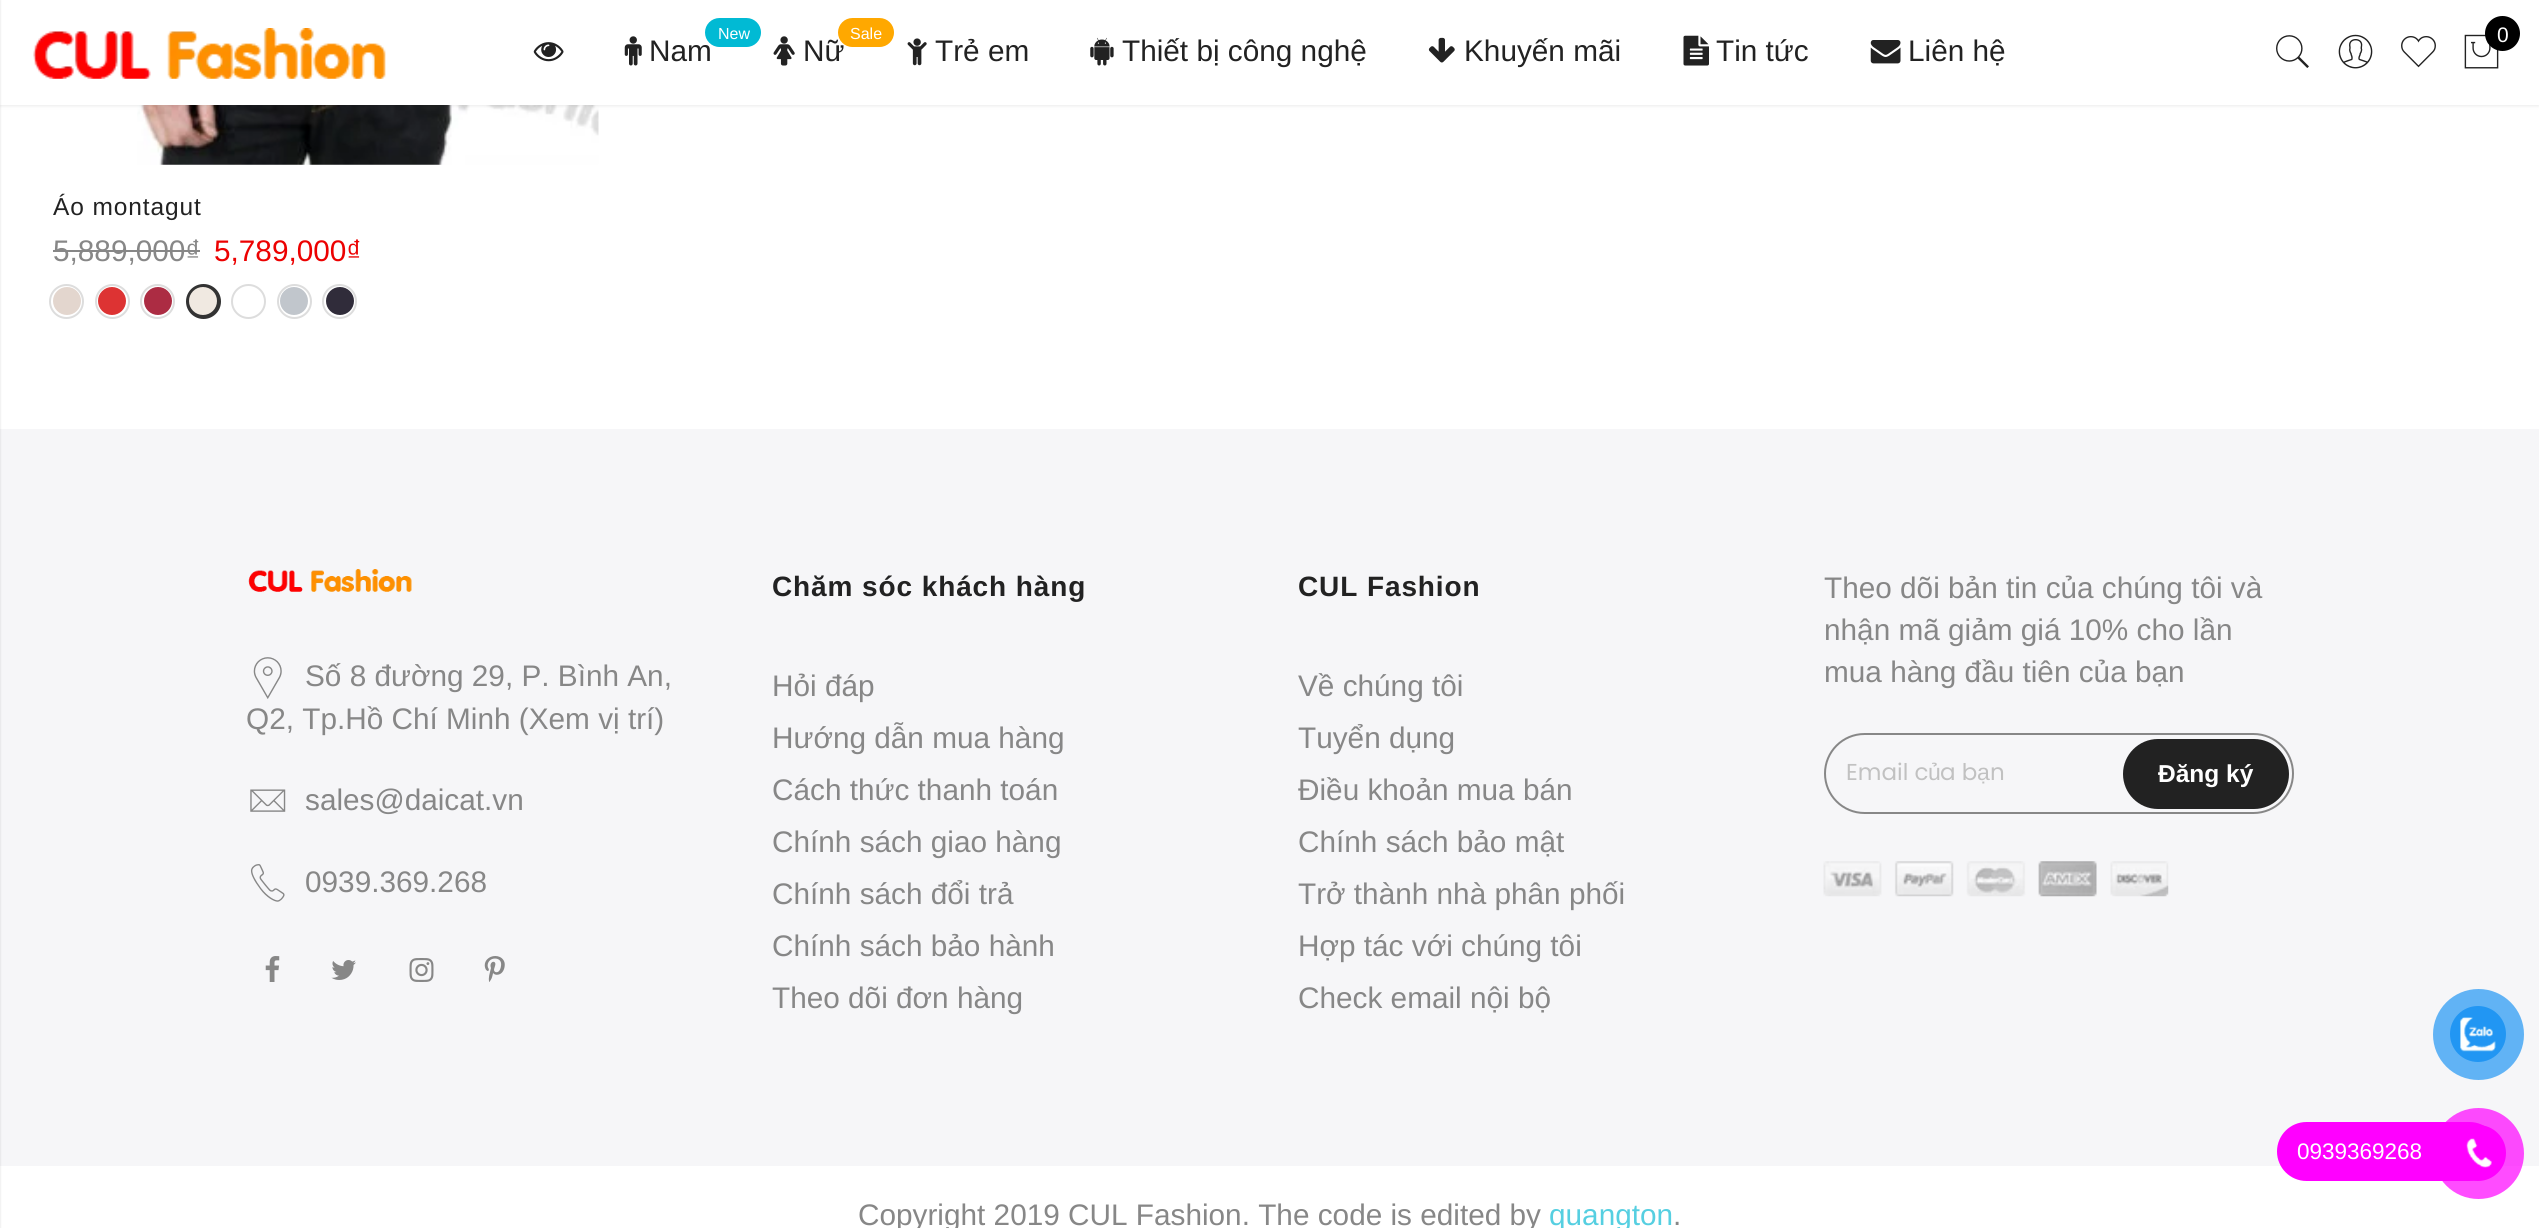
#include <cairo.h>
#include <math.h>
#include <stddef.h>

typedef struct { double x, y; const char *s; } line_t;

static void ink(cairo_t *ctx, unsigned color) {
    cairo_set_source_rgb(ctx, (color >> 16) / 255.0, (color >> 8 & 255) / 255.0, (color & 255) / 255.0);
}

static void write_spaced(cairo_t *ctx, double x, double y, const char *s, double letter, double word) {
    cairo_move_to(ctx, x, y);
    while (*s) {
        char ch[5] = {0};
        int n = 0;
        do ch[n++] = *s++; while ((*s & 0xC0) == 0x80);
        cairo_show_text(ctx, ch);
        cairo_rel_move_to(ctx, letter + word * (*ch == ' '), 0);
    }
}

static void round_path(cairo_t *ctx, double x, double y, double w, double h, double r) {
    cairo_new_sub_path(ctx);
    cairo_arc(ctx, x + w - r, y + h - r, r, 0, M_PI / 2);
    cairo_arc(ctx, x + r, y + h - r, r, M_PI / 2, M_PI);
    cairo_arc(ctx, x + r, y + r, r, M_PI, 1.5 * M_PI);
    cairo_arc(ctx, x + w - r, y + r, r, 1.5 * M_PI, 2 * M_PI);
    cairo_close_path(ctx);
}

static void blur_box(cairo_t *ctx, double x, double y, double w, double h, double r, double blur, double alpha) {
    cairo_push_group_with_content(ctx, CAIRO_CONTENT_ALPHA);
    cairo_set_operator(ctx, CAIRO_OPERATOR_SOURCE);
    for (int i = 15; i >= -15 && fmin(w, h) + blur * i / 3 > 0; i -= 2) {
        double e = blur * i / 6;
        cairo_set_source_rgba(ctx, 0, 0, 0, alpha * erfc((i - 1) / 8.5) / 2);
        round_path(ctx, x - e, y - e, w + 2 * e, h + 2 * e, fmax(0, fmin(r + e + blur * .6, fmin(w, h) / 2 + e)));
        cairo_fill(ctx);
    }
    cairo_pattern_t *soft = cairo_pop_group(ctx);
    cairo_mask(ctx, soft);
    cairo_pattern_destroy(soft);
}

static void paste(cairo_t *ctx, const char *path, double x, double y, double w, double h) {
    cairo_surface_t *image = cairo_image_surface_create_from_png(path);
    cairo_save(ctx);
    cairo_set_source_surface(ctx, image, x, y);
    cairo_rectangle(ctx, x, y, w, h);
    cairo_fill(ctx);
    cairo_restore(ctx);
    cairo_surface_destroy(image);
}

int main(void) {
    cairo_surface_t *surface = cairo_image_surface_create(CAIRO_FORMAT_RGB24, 2539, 1228);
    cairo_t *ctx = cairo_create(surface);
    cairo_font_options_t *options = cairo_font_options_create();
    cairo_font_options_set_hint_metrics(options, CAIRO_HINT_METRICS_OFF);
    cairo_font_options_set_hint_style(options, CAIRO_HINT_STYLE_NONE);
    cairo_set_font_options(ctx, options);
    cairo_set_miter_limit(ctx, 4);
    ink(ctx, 0xFFFFFF);
    cairo_paint(ctx);
    paste(ctx, "media/14.png", 137, 105, 462, 60);
    ink(ctx, 0x000000);
    blur_box(ctx, 0, 0, 2539, 105, 0, 2.5, 0.12);
    ink(ctx, 0xFFFFFF);
    cairo_rectangle(ctx, 0, 0, 2539, 105);
    cairo_fill(ctx);
    paste(ctx, "media/1.png", 33, 28, 353, 51);
    paste(ctx, "media/2.png", 533, 42, 31, 20);
    cairo_select_font_face(ctx, "Liberation Sans", CAIRO_FONT_SLANT_NORMAL, CAIRO_FONT_WEIGHT_NORMAL);
    cairo_set_font_size(ctx, 29.75);
    ink(ctx, 0x222222);
    cairo_move_to(ctx, 649, 61);
    cairo_show_text(ctx, "Nam");
    ink(ctx, 0x01BAD4);
    round_path(ctx, 705, 18, 56, 29, 14.5);
    cairo_fill(ctx);
    cairo_set_font_size(ctx, 16);
    ink(ctx, 0xFFFFFF);
    cairo_move_to(ctx, 718, 39);
    cairo_show_text(ctx, "New");
    paste(ctx, "media/3.png", 624, 36, 18, 30);
    cairo_set_font_size(ctx, 29.75);
    ink(ctx, 0x222222);
    cairo_move_to(ctx, 803, 61);
    cairo_show_text(ctx, "Nữ");
    ink(ctx, 0xFFA800);
    round_path(ctx, 838, 18, 56, 29, 14.5);
    cairo_fill(ctx);
    cairo_set_font_size(ctx, 16);
    ink(ctx, 0xFFFFFF);
    cairo_move_to(ctx, 850, 39);
    cairo_show_text(ctx, "Sale");
    paste(ctx, "media/4.png", 773, 36, 22, 30);
    paste(ctx, "media/5.png", 907, 38, 20, 28);
    cairo_set_font_size(ctx, 29.75);
    ink(ctx, 0x222222);
    cairo_move_to(ctx, 935, 61);
    cairo_show_text(ctx, "Trẻ em");
    paste(ctx, "media/6.png", 1090, 37, 24, 29);
    cairo_move_to(ctx, 1122, 61);
    cairo_show_text(ctx, "Thiết bị công nghệ");
    paste(ctx, "media/7.png", 1428, 37, 27, 26);
    cairo_move_to(ctx, 1464, 61);
    cairo_show_text(ctx, "Khuyến mãi");
    paste(ctx, "media/8.png", 1683, 35, 26, 31);
    cairo_move_to(ctx, 1716, 61);
    cairo_show_text(ctx, "Tin tức");
    paste(ctx, "media/9.png", 1870, 40, 31, 24);
    cairo_move_to(ctx, 1908, 61);
    cairo_show_text(ctx, "Liên hệ");
    paste(ctx, "media/10.png", 2276, 35, 33, 33);
    paste(ctx, "media/11.png", 2338, 34, 35, 35);
    paste(ctx, "media/12.png", 2401, 36, 35, 32);
    paste(ctx, "media/13.png", 2464, 34, 35, 35);
    ink(ctx, 0x000000);
    cairo_arc(ctx, 2502.5, 33.5, 17.5, 0, 2 * M_PI);
    cairo_fill(ctx);
    cairo_set_font_size(ctx, 21);
    ink(ctx, 0xFFFFFF);
    cairo_move_to(ctx, 2497, 42);
    cairo_show_text(ctx, "0");
    ink(ctx, 0xF6F6F8);
    cairo_rectangle(ctx, 0, 429, 2539, 737);
    cairo_fill(ctx);
    ink(ctx, 0x000000);
    blur_box(ctx, -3, 0, 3, 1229, 0, 1, 0.15);
    cairo_set_font_size(ctx, 24.5);
    ink(ctx, 0x222222);
    write_spaced(ctx, 53, 215, "Áo montagut", 0.9, 0);
    cairo_set_font_size(ctx, 29.75);
    ink(ctx, 0x878787);
    cairo_move_to(ctx, 53, 261);
    cairo_show_text(ctx, "5,889,000₫");
    cairo_rectangle(ctx, 53, 250, 147, 2);
    cairo_fill(ctx);
    ink(ctx, 0xEC0101);
    cairo_move_to(ctx, 214, 261);
    cairo_show_text(ctx, "5,789,000₫");
    cairo_new_path(ctx);
    cairo_arc(ctx, 66.5, 301.5, 16.5, 0, 2 * M_PI);
    ink(ctx, 0xDDDDDD);
    cairo_stroke(ctx);
    ink(ctx, 0xE3D6CE);
    cairo_arc(ctx, 67, 301, 14, 0, 2 * M_PI);
    cairo_fill(ctx);
    cairo_arc(ctx, 112.5, 301.5, 16.5, 0, 2 * M_PI);
    ink(ctx, 0xDDDDDD);
    cairo_stroke(ctx);
    ink(ctx, 0xDD3333);
    cairo_arc(ctx, 112, 301, 14, 0, 2 * M_PI);
    cairo_fill(ctx);
    cairo_arc(ctx, 157.5, 301.5, 16.5, 0, 2 * M_PI);
    ink(ctx, 0xDDDDDD);
    cairo_stroke(ctx);
    ink(ctx, 0xAC2C43);
    cairo_arc(ctx, 158, 301, 14, 0, 2 * M_PI);
    cairo_fill(ctx);
    ink(ctx, 0x333333);
    cairo_arc(ctx, 203.5, 301.5, 16.5, 0, 2 * M_PI);
    cairo_fill_preserve(ctx);
    cairo_stroke(ctx);
    ink(ctx, 0xF0E9E1);
    cairo_arc(ctx, 203, 301, 14, 0, 2 * M_PI);
    cairo_fill(ctx);
    cairo_arc(ctx, 248.5, 301.5, 16.5, 0, 2 * M_PI);
    ink(ctx, 0xDDDDDD);
    cairo_stroke(ctx);
    cairo_arc(ctx, 294.5, 301.5, 16.5, 0, 2 * M_PI);
    cairo_stroke(ctx);
    ink(ctx, 0xC1C6CC);
    cairo_arc(ctx, 294, 301, 14, 0, 2 * M_PI);
    cairo_fill(ctx);
    cairo_arc(ctx, 339.5, 301.5, 16.5, 0, 2 * M_PI);
    ink(ctx, 0xDDDDDD);
    cairo_stroke(ctx);
    ink(ctx, 0x302C3A);
    cairo_arc(ctx, 340, 301, 14, 0, 2 * M_PI);
    cairo_fill(ctx);
    paste(ctx, "media/15.png", 248, 569, 164, 23);
    paste(ctx, "media/16.png", 253, 657, 29, 42);
    ink(ctx, 0x878787);
    cairo_move_to(ctx, 305, 686);
    cairo_show_text(ctx, "Số 8 đường 29, P. Bình An,");
    cairo_move_to(ctx, 246, 729);
    cairo_show_text(ctx, "Q2, Tp.Hồ Chí Minh (Xem vị trí)");
    paste(ctx, "media/17.png", 250, 789, 36, 23);
    cairo_move_to(ctx, 305, 810);
    cairo_show_text(ctx, "sales@daicat.vn");
    paste(ctx, "media/18.png", 250, 864, 35, 38);
    cairo_move_to(ctx, 305, 892);
    cairo_show_text(ctx, "0939.369.268");
    paste(ctx, "media/19.png", 265, 956, 15, 26);
    paste(ctx, "media/20.png", 331, 960, 25, 20);
    paste(ctx, "media/21.png", 409, 958, 25, 24);
    paste(ctx, "media/22.png", 484, 956, 21, 26);
    cairo_select_font_face(ctx, "Liberation Sans", CAIRO_FONT_SLANT_NORMAL, CAIRO_FONT_WEIGHT_BOLD);
    cairo_set_font_size(ctx, 28);
    ink(ctx, 0x222222);
    write_spaced(ctx, 772, 596, "Chăm sóc khách hàng", 0.9, 0);
    cairo_select_font_face(ctx, "Liberation Sans", CAIRO_FONT_SLANT_NORMAL, CAIRO_FONT_WEIGHT_NORMAL);
    cairo_set_font_size(ctx, 29.75);
    ink(ctx, 0x878787);
    {
        static const line_t items[] = {
            {772, 696, "Hỏi đáp"},
            {772, 748, "Hướng dẫn mua hàng"},
            {772, 800, "Cách thức thanh toán"},
            {772, 852, "Chính sách giao hàng"},
            {772, 904, "Chính sách đổi trả"},
            {772, 956, "Chính sách bảo hành"},
            {772, 1008, "Theo dõi đơn hàng"},
        };
        for (size_t i = 0; i < sizeof items / sizeof *items; i++) {
            cairo_move_to(ctx, items[i].x, items[i].y);
            cairo_show_text(ctx, items[i].s);
        }
    }
    cairo_select_font_face(ctx, "Liberation Sans", CAIRO_FONT_SLANT_NORMAL, CAIRO_FONT_WEIGHT_BOLD);
    cairo_set_font_size(ctx, 28);
    ink(ctx, 0x222222);
    write_spaced(ctx, 1298, 596, "CUL Fashion", 0.9, 0);
    cairo_select_font_face(ctx, "Liberation Sans", CAIRO_FONT_SLANT_NORMAL, CAIRO_FONT_WEIGHT_NORMAL);
    cairo_set_font_size(ctx, 29.75);
    ink(ctx, 0x878787);
    {
        static const line_t items[] = {
            {1298, 696, "Về chúng tôi"},
            {1298, 748, "Tuyển dụng"},
            {1298, 800, "Điều khoản mua bán"},
            {1298, 852, "Chính sách bảo mật"},
            {1298, 904, "Trở thành nhà phân phối"},
            {1298, 956, "Hợp tác với chúng tôi"},
            {1298, 1008, "Check email nội bộ"},
            {1824, 598, "Theo dõi bản tin của chúng tôi và"},
            {1824, 640, "nhận mã giảm giá 10% cho lần"},
            {1824, 682, "mua hàng đầu tiên của bạn"},
        };
        for (size_t i = 0; i < sizeof items / sizeof *items; i++) {
            cairo_move_to(ctx, items[i].x, items[i].y);
            cairo_show_text(ctx, items[i].s);
        }
    }
    round_path(ctx, 1825, 734, 468, 79, 39.5);
    cairo_stroke(ctx);
    cairo_select_font_face(ctx, "Poppins", CAIRO_FONT_SLANT_NORMAL, CAIRO_FONT_WEIGHT_NORMAL);
    cairo_set_font_size(ctx, 23);
    ink(ctx, 0xC1C1C1);
    cairo_move_to(ctx, 1846, 780);
    cairo_show_text(ctx, "Email c");
    cairo_select_font_face(ctx, "Liberation Sans", CAIRO_FONT_SLANT_NORMAL, CAIRO_FONT_WEIGHT_NORMAL);
    cairo_move_to(ctx, 1928, 780);
    cairo_show_text(ctx, "ủ");
    cairo_select_font_face(ctx, "Poppins", CAIRO_FONT_SLANT_NORMAL, CAIRO_FONT_WEIGHT_NORMAL);
    cairo_move_to(ctx, 1940, 780);
    cairo_show_text(ctx, "a b");
    cairo_select_font_face(ctx, "Liberation Sans", CAIRO_FONT_SLANT_NORMAL, CAIRO_FONT_WEIGHT_NORMAL);
    cairo_move_to(ctx, 1977, 780);
    cairo_show_text(ctx, "ạ");
    cairo_select_font_face(ctx, "Poppins", CAIRO_FONT_SLANT_NORMAL, CAIRO_FONT_WEIGHT_NORMAL);
    cairo_move_to(ctx, 1990, 780);
    cairo_show_text(ctx, "n");
    ink(ctx, 0x222222);
    round_path(ctx, 2123, 739, 166, 70, 35);
    cairo_fill(ctx);
    cairo_select_font_face(ctx, "Liberation Sans", CAIRO_FONT_SLANT_NORMAL, CAIRO_FONT_WEIGHT_BOLD);
    cairo_set_font_size(ctx, 24.5);
    ink(ctx, 0xFFFFFF);
    cairo_move_to(ctx, 2158, 782);
    cairo_show_text(ctx, "Đăng ký");
    paste(ctx, "media/23.png", 1823, 861, 346, 36);
    cairo_select_font_face(ctx, "Liberation Sans", CAIRO_FONT_SLANT_NORMAL, CAIRO_FONT_WEIGHT_NORMAL);
    cairo_set_font_size(ctx, 29.75);
    ink(ctx, 0x878787);
    cairo_move_to(ctx, 858, 1225);
    cairo_show_text(ctx, "Copyright 2019 CUL Fashion. The code is edited by");
    ink(ctx, 0x56CFE1);
    cairo_move_to(ctx, 1549, 1225);
    cairo_show_text(ctx, "quangton");
    ink(ctx, 0x878787);
    cairo_move_to(ctx, 1673, 1225);
    cairo_show_text(ctx, ".");
    ink(ctx, 0x61B3F5);
    cairo_new_path(ctx);
    cairo_arc(ctx, 2478.5, 1034.5, 45.5, 0, 2 * M_PI);
    cairo_fill(ctx);
    ink(ctx, 0x2196F3);
    cairo_arc(ctx, 2478, 1034, 28, 0, 2 * M_PI);
    cairo_fill(ctx);
    paste(ctx, "media/24.png", 2460, 1017, 36, 35);
    ink(ctx, 0xFF00FF);
    round_path(ctx, 2277, 1122, 222, 59, 29.5);
    cairo_fill(ctx);
    cairo_set_font_size(ctx, 22.5);
    ink(ctx, 0xFFFFFF);
    cairo_move_to(ctx, 2297, 1159);
    cairo_show_text(ctx, "0939369268");
    cairo_set_source_rgba(ctx, 1, 0, 1, 0.7);
    cairo_new_path(ctx);
    cairo_arc(ctx, 2478.5, 1153.5, 45.5, 0, 2 * M_PI);
    cairo_fill(ctx);
    ink(ctx, 0xFF00FF);
    cairo_arc(ctx, 2478, 1153, 28, 0, 2 * M_PI);
    cairo_fill(ctx);
    paste(ctx, "media/25.png", 2466, 1138, 26, 30);
    cairo_surface_write_to_png(surface, "image.png");
    cairo_font_options_destroy(options);
    cairo_destroy(ctx);
    cairo_surface_destroy(surface);
    return 0;
}
